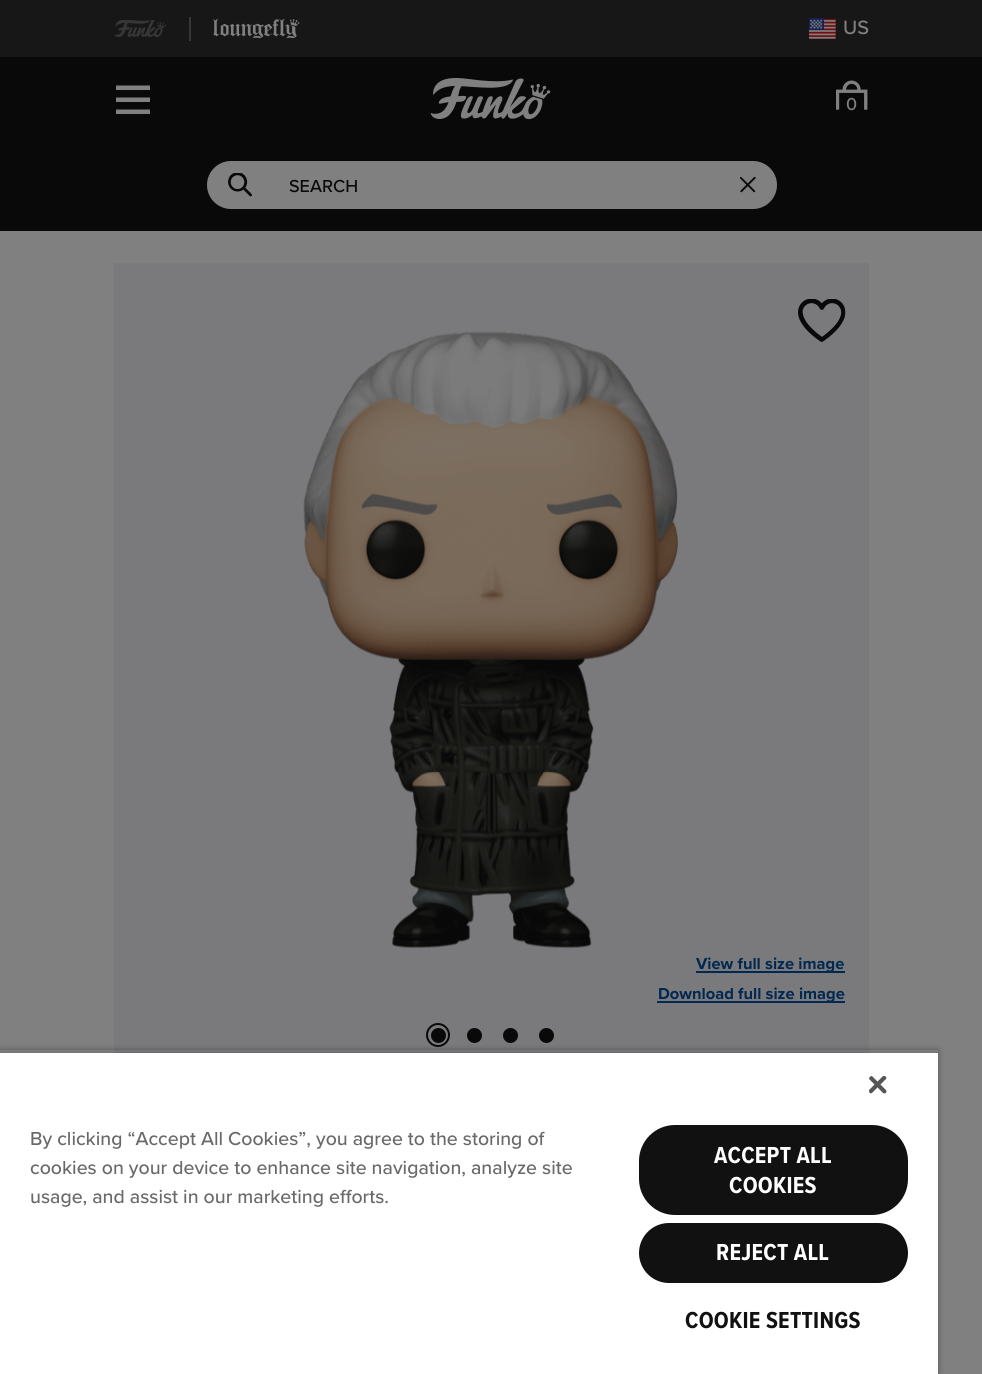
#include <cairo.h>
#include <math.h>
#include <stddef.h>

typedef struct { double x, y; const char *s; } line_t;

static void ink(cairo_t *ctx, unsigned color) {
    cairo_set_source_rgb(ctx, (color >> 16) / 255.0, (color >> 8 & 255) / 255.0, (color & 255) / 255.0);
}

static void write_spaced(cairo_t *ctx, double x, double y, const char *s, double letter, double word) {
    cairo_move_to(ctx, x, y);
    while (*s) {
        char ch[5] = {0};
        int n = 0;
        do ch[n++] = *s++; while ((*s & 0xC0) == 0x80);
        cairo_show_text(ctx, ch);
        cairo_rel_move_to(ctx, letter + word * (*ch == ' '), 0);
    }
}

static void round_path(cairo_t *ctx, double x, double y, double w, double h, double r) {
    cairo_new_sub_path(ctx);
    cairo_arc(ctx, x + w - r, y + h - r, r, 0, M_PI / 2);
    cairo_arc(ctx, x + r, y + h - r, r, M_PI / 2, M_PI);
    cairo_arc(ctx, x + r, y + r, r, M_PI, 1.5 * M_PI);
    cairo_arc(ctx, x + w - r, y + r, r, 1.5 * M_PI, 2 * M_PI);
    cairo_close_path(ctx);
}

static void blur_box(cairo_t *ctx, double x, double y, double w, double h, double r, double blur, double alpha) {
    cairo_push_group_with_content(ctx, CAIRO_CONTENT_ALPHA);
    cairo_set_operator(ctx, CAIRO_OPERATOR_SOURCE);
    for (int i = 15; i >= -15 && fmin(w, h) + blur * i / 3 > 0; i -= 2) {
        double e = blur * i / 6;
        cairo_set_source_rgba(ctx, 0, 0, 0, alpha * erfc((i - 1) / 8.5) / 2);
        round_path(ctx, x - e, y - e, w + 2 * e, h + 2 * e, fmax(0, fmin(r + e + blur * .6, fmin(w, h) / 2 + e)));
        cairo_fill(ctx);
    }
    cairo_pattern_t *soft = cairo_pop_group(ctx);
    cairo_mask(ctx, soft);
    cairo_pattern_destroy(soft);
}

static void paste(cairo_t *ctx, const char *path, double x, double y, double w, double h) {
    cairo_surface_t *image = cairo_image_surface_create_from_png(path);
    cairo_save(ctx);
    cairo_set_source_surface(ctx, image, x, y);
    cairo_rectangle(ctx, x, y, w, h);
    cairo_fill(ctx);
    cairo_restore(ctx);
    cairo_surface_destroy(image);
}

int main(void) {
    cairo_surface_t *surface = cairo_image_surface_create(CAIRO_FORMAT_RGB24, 982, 1374);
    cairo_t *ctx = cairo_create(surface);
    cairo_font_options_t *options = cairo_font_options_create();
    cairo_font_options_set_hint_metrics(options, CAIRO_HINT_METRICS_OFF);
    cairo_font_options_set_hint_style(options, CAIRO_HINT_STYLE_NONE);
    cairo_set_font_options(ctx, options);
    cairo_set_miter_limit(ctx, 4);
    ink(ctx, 0x808080);
    cairo_paint(ctx);
    ink(ctx, 0x090909);
    cairo_rectangle(ctx, 0, 57, 982, 174);
    cairo_fill(ctx);
    ink(ctx, 0x171717);
    cairo_rectangle(ctx, 0, 0, 982, 57);
    cairo_fill(ctx);
    paste(ctx, "media/1.png", 114, 20, 52, 18);
    ink(ctx, 0x363636);
    cairo_rectangle(ctx, 189, 17, 2, 24);
    cairo_fill(ctx);
    paste(ctx, "media/2.png", 213, 19, 87, 20);
    paste(ctx, "media/3.png", 809, 18, 27, 21);
    cairo_select_font_face(ctx, "Proxima Nova Medium", CAIRO_FONT_SLANT_NORMAL, CAIRO_FONT_WEIGHT_NORMAL);
    cairo_set_font_size(ctx, 20);
    ink(ctx, 0x808080);
    cairo_move_to(ctx, 843, 34);
    cairo_show_text(ctx, "US");
    cairo_save(ctx);
    cairo_rectangle(ctx, 116, 83, 34, 34);
    cairo_clip(ctx);
    cairo_new_path(ctx);
    cairo_move_to(ctx, 115.5, 85.5);
    cairo_line_to(ctx, 150, 85.5);
    cairo_line_to(ctx, 150, 90);
    cairo_line_to(ctx, 115.5, 90);
    cairo_close_path(ctx);
    cairo_move_to(ctx, 115.5, 97.5);
    cairo_line_to(ctx, 150, 97.5);
    cairo_line_to(ctx, 150, 102);
    cairo_line_to(ctx, 115.5, 102);
    cairo_close_path(ctx);
    cairo_move_to(ctx, 115.5, 109.5);
    cairo_line_to(ctx, 150, 109.5);
    cairo_line_to(ctx, 150, 114);
    cairo_line_to(ctx, 115.5, 114);
    cairo_close_path(ctx);
    cairo_fill(ctx);
    cairo_restore(ctx);
    paste(ctx, "media/4.png", 430, 78, 121, 42);
    paste(ctx, "media/5.png", 836, 80, 32, 30);
    cairo_set_font_size(ctx, 18);
    cairo_move_to(ctx, 846, 110);
    cairo_show_text(ctx, "0");
    round_path(ctx, 207, 161, 570, 48, 24);
    cairo_fill(ctx);
    paste(ctx, "media/6.png", 228, 173, 24, 24);
    ink(ctx, 0x090909);
    cairo_move_to(ctx, 289, 192);
    cairo_show_text(ctx, "SEARCH");
    paste(ctx, "media/7.png", 740, 177, 16, 16);
    ink(ctx, 0x7A7A7C);
    cairo_rectangle(ctx, 114, 263, 755, 790);
    cairo_fill(ctx);
    paste(ctx, "media/8.png", 798, 299, 48, 43);
    paste(ctx, "media/9.png", 303, 331, 375, 618);
    ink(ctx, 0x002850);
    cairo_rectangle(ctx, 696, 971, 149, 2);
    cairo_fill(ctx);
    cairo_select_font_face(ctx, "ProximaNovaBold", CAIRO_FONT_SLANT_NORMAL, CAIRO_FONT_WEIGHT_BOLD);
    cairo_set_font_size(ctx, 16.5);
    cairo_move_to(ctx, 696, 969);
    cairo_show_text(ctx, "View full size image");
    cairo_rectangle(ctx, 657, 1001, 188, 2);
    cairo_fill(ctx);
    cairo_move_to(ctx, 658, 999);
    cairo_show_text(ctx, "Download full size image");
    ink(ctx, 0x090909);
    cairo_new_path(ctx);
    cairo_arc(ctx, 438.5, 1035.5, 7.5, 0, 2 * M_PI);
    cairo_fill(ctx);
    cairo_arc(ctx, 438, 1035, 11, 0, 2 * M_PI);
    cairo_stroke(ctx);
    cairo_arc(ctx, 474.5, 1035.5, 7.5, 0, 2 * M_PI);
    cairo_fill(ctx);
    cairo_arc(ctx, 510.5, 1035.5, 7.5, 0, 2 * M_PI);
    cairo_fill(ctx);
    cairo_arc(ctx, 546.5, 1035.5, 7.5, 0, 2 * M_PI);
    cairo_fill(ctx);
    cairo_save(ctx);
    cairo_set_fill_rule(ctx, CAIRO_FILL_RULE_EVEN_ODD);
    cairo_new_path(ctx);
    cairo_move_to(ctx, 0, 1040);
    cairo_line_to(ctx, 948, 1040);
    cairo_line_to(ctx, 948, 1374);
    cairo_line_to(ctx, 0, 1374);
    cairo_close_path(ctx);
    cairo_move_to(ctx, 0, 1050);
    cairo_line_to(ctx, 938, 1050);
    cairo_line_to(ctx, 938, 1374);
    cairo_line_to(ctx, 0, 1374);
    cairo_close_path(ctx);
    cairo_clip(ctx);
    ink(ctx, 0x000000);
    blur_box(ctx, 0, 1050, 938, 324, 0, 3, 0.35);
    cairo_restore(ctx);
    cairo_save(ctx);
    cairo_rectangle(ctx, 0, 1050, 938, 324);
    cairo_clip(ctx);
    ink(ctx, 0x000000);
    blur_box(ctx, 0, 1053, 938, 321, 0, 3, 0.2);
    cairo_restore(ctx);
    ink(ctx, 0xFFFFFF);
    cairo_rectangle(ctx, 0, 1053, 938, 321);
    cairo_fill(ctx);
    paste(ctx, "media/10.png", 869, 1076, 18, 18);
    cairo_select_font_face(ctx, "Proxima Nova Medium", CAIRO_FONT_SLANT_NORMAL, CAIRO_FONT_WEIGHT_NORMAL);
    cairo_set_font_size(ctx, 19.5);
    ink(ctx, 0x696969);
    {
        static const line_t items[] = {
            {30, 1145, "By clicking “Accept All Cookies”, you agree to the storing of"},
            {30, 1174, "cookies on your device to enhance site navigation, analyze site"},
            {30, 1203, "usage, and assist in our marketing efforts."},
        };
        for (size_t i = 0; i < sizeof items / sizeof *items; i++) {
            cairo_move_to(ctx, items[i].x, items[i].y);
            cairo_show_text(ctx, items[i].s);
        }
    }
    ink(ctx, 0x111111);
    round_path(ctx, 640.5, 1126.5, 266, 87, 34.5);
    cairo_fill_preserve(ctx);
    cairo_set_line_width(ctx, 3);
    cairo_stroke(ctx);
    cairo_select_font_face(ctx, "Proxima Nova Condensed", CAIRO_FONT_SLANT_NORMAL, CAIRO_FONT_WEIGHT_BOLD);
    cairo_set_font_size(ctx, 24);
    ink(ctx, 0xFFFFFF);
    write_spaced(ctx, 714, 1163, "ACCEPT ALL", 0.25, 0);
    write_spaced(ctx, 729, 1193, "COOKIES", 0.25, 0);
    ink(ctx, 0x111111);
    round_path(ctx, 640.5, 1224.5, 266, 57, 28.5);
    cairo_fill_preserve(ctx);
    cairo_stroke(ctx);
    ink(ctx, 0xFFFFFF);
    write_spaced(ctx, 716, 1260, "REJECT ALL", 0.25, 0);
    ink(ctx, 0x111111);
    write_spaced(ctx, 685, 1328, "COOKIE SETTINGS", 0.25, 0);
    cairo_surface_write_to_png(surface, "image.png");
    cairo_font_options_destroy(options);
    cairo_destroy(ctx);
    cairo_surface_destroy(surface);
    return 0;
}
